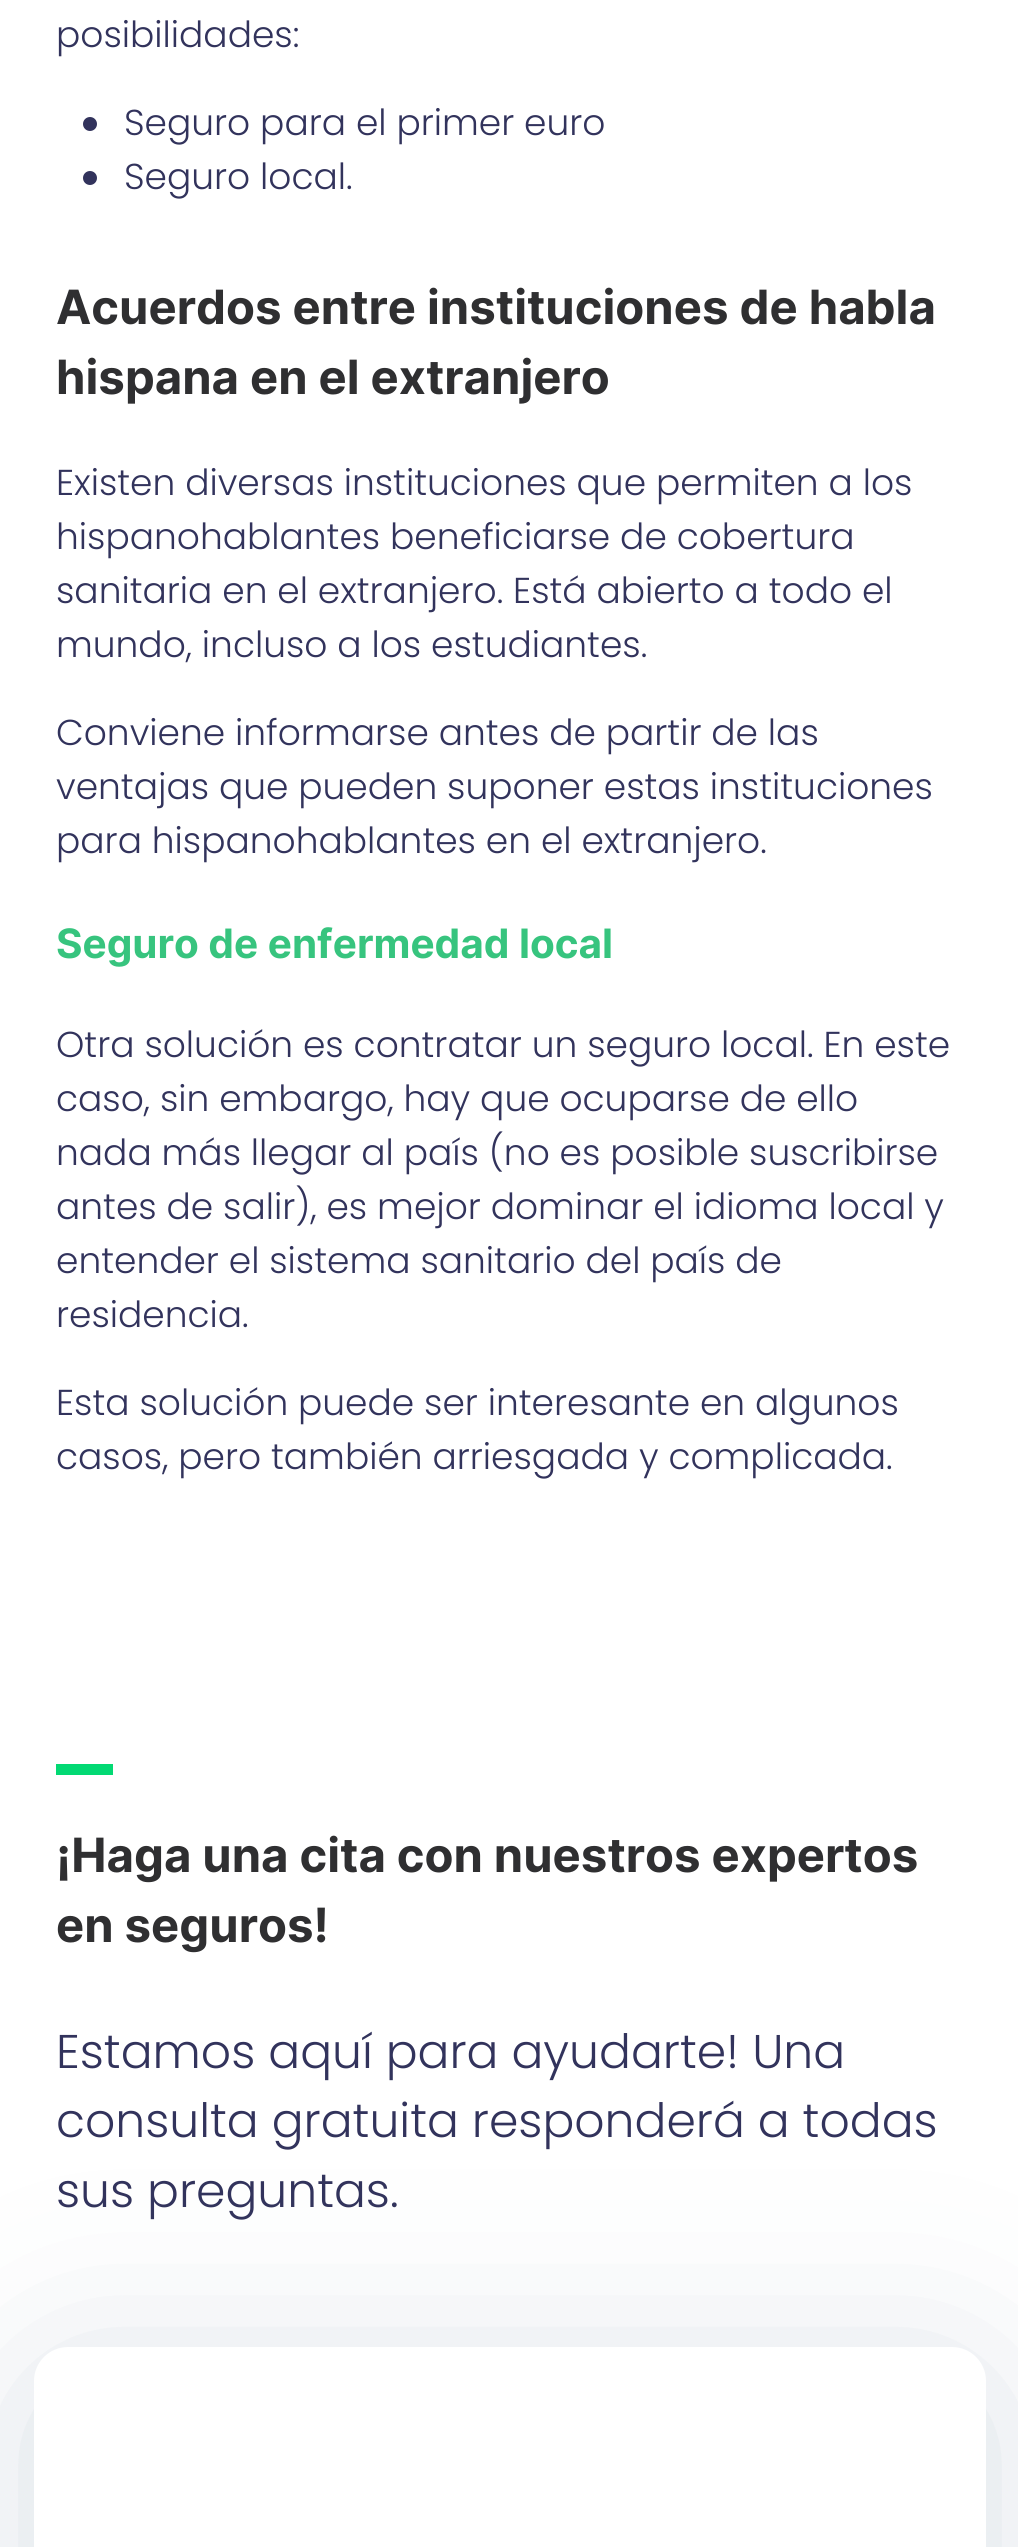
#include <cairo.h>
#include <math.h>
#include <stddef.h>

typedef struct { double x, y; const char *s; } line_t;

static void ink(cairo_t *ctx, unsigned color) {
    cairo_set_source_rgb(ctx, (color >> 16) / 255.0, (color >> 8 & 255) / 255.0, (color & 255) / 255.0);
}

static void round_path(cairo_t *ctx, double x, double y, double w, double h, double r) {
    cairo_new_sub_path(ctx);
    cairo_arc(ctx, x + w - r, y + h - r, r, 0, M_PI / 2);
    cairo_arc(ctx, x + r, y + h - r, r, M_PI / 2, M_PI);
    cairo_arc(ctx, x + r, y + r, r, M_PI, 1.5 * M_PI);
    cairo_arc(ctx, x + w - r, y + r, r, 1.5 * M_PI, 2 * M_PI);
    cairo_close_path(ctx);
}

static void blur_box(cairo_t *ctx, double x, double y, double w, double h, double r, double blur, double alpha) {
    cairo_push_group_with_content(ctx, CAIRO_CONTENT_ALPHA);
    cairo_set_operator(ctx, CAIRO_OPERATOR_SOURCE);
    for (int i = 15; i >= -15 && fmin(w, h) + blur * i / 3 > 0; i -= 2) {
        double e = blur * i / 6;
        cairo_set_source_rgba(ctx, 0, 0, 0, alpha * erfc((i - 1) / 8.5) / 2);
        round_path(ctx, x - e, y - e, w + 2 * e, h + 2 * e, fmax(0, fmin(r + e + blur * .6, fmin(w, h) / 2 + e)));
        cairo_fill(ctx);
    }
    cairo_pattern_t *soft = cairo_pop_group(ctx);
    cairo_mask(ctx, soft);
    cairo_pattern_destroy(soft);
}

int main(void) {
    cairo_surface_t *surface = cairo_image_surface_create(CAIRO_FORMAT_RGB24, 1018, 2547);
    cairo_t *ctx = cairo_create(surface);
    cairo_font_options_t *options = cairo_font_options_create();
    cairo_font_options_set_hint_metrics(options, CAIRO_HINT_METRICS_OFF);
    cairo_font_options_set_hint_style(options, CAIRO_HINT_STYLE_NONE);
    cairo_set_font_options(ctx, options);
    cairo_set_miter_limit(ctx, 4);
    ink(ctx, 0xFFFFFF);
    cairo_paint(ctx);
    cairo_select_font_face(ctx, "Poppins Light", CAIRO_FONT_SLANT_NORMAL, CAIRO_FONT_WEIGHT_NORMAL);
    cairo_set_font_size(ctx, 36);
    ink(ctx, 0x32335C);
    cairo_move_to(ctx, 56, 47);
    cairo_show_text(ctx, "posibilidades:");
    cairo_new_path(ctx);
    cairo_arc(ctx, 90, 124, 7, 0, 2 * M_PI);
    cairo_fill(ctx);
    cairo_move_to(ctx, 124, 135);
    cairo_show_text(ctx, "Seguro para el primer euro");
    cairo_new_path(ctx);
    cairo_arc(ctx, 90, 178, 7, 0, 2 * M_PI);
    cairo_fill(ctx);
    cairo_move_to(ctx, 124, 189);
    cairo_show_text(ctx, "Seguro local.");
    cairo_select_font_face(ctx, "Inter", CAIRO_FONT_SLANT_NORMAL, CAIRO_FONT_WEIGHT_BOLD);
    cairo_set_font_size(ctx, 47.25);
    ink(ctx, 0x2F2F31);
    cairo_move_to(ctx, 56, 324);
    cairo_show_text(ctx, "Acuerdos entre instituciones de habla");
    cairo_move_to(ctx, 56, 394);
    cairo_show_text(ctx, "hispana en el extranjero");
    cairo_select_font_face(ctx, "Poppins Light", CAIRO_FONT_SLANT_NORMAL, CAIRO_FONT_WEIGHT_NORMAL);
    cairo_set_font_size(ctx, 36);
    ink(ctx, 0x32335C);
    {
        static const line_t items[] = {
            {56, 495, "Existen diversas instituciones que permiten a los"},
            {56, 549, "hispanohablantes beneficiarse de cobertura"},
            {56, 603, "sanitaria en el extranjero. Está abierto a todo el"},
            {56, 657, "mundo, incluso a los estudiantes."},
            {56, 745, "Conviene informarse antes de partir de las"},
            {56, 799, "ventajas que pueden suponer estas instituciones"},
            {56, 853, "para hispanohablantes en el extranjero."},
        };
        for (size_t i = 0; i < sizeof items / sizeof *items; i++) {
            cairo_move_to(ctx, items[i].x, items[i].y);
            cairo_show_text(ctx, items[i].s);
        }
    }
    cairo_select_font_face(ctx, "Inter", CAIRO_FONT_SLANT_NORMAL, CAIRO_FONT_WEIGHT_BOLD);
    cairo_set_font_size(ctx, 40.5);
    ink(ctx, 0x37C47E);
    cairo_move_to(ctx, 56, 958);
    cairo_show_text(ctx, "Seguro de enfermedad local");
    cairo_select_font_face(ctx, "Poppins Light", CAIRO_FONT_SLANT_NORMAL, CAIRO_FONT_WEIGHT_NORMAL);
    cairo_set_font_size(ctx, 36);
    ink(ctx, 0x32335C);
    {
        static const line_t items[] = {
            {56, 1057, "Otra solución es contratar un seguro local. En este"},
            {56, 1111, "caso, sin embargo, hay que ocuparse de ello"},
            {56, 1165, "nada más llegar al país (no es posible suscribirse"},
            {56, 1219, "antes de salir), es mejor dominar el idioma local y"},
            {56, 1273, "entender el sistema sanitario del país de"},
            {56, 1327, "residencia."},
            {56, 1415, "Esta solución puede ser interesante en algunos"},
            {56, 1469, "casos, pero también arriesgada y complicada."},
        };
        for (size_t i = 0; i < sizeof items / sizeof *items; i++) {
            cairo_move_to(ctx, items[i].x, items[i].y);
            cairo_show_text(ctx, items[i].s);
        }
    }
    ink(ctx, 0x02D973);
    cairo_rectangle(ctx, 56, 1764, 57, 11);
    cairo_fill(ctx);
    cairo_select_font_face(ctx, "Inter", CAIRO_FONT_SLANT_NORMAL, CAIRO_FONT_WEIGHT_BOLD);
    cairo_set_font_size(ctx, 47.25);
    ink(ctx, 0x2F2F31);
    cairo_move_to(ctx, 56, 1872);
    cairo_show_text(ctx, "¡Haga una cita con nuestros expertos");
    cairo_move_to(ctx, 56, 1942);
    cairo_show_text(ctx, "en seguros!");
    cairo_select_font_face(ctx, "Poppins Light", CAIRO_FONT_SLANT_NORMAL, CAIRO_FONT_WEIGHT_NORMAL);
    ink(ctx, 0x32335C);
    {
        static const line_t items[] = {
            {56, 2068, "Estamos aquí para ayudarte! Una"},
            {56, 2137, "consulta gratuita responderá a todas"},
            {56, 2207, "sus preguntas."},
        };
        for (size_t i = 0; i < sizeof items / sizeof *items; i++) {
            cairo_move_to(ctx, items[i].x, items[i].y);
            cairo_show_text(ctx, items[i].s);
        }
    }
    ink(ctx, 0x37577C);
    blur_box(ctx, 34, 2374, 952, 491, 34, 94.5, 0.2);
    ink(ctx, 0xFFFFFF);
    round_path(ctx, 34, 2347, 952, 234, 34);
    cairo_fill(ctx);
    cairo_surface_write_to_png(surface, "image.png");
    cairo_font_options_destroy(options);
    cairo_destroy(ctx);
    cairo_surface_destroy(surface);
    return 0;
}
